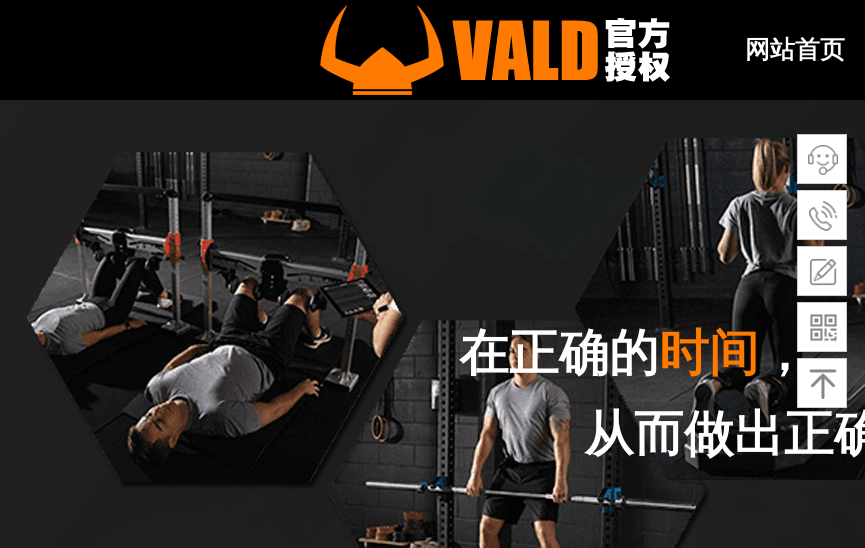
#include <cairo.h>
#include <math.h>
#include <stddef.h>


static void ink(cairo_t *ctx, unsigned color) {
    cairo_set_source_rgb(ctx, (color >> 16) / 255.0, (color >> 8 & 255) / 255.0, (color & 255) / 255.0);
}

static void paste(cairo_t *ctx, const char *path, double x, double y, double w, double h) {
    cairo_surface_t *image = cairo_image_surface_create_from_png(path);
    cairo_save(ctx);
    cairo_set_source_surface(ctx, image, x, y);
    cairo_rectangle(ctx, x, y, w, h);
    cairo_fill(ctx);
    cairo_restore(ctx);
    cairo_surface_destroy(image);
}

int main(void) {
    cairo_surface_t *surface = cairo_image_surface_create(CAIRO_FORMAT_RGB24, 865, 548);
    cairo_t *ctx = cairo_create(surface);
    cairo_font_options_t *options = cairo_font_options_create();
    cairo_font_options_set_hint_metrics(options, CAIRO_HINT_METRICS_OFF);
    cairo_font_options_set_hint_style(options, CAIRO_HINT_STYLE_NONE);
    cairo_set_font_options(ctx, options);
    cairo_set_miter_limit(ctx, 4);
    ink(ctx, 0xFFFFFF);
    cairo_paint(ctx);
    ink(ctx, 0x000000);
    cairo_rectangle(ctx, 0, 0, 865, 100);
    cairo_fill(ctx);
    paste(ctx, "media/1.png", 320, 5, 350, 90);
    cairo_select_font_face(ctx, "WenQuanYi Zen Hei", CAIRO_FONT_SLANT_NORMAL, CAIRO_FONT_WEIGHT_BOLD);
    cairo_set_font_size(ctx, 25);
    ink(ctx, 0xFFFFFF);
    cairo_move_to(ctx, 745, 58);
    cairo_show_text(ctx, "网站首页");
    paste(ctx, "media/2.png", 0, 100, 865, 448);
    paste(ctx, "media/3.png", 574, 138, 291, 342);
    cairo_set_font_size(ctx, 50);
    cairo_move_to(ctx, 459, 370);
    cairo_show_text(ctx, "在正确的");
    ink(ctx, 0xFF7A00);
    cairo_move_to(ctx, 659, 370);
    cairo_show_text(ctx, "时间");
    ink(ctx, 0xFFFFFF);
    cairo_move_to(ctx, 759, 370);
    cairo_show_text(ctx, "，");
    cairo_move_to(ctx, 584, 451);
    cairo_show_text(ctx, "从而做出正确");
    cairo_rectangle(ctx, 797.5, 134.5, 49, 49);
    cairo_fill_preserve(ctx);
    ink(ctx, 0xCCCCCC);
    cairo_set_line_width(ctx, 1);
    cairo_stroke(ctx);
    paste(ctx, "media/4.png", 808, 145, 30, 30);
    ink(ctx, 0xFFFFFF);
    cairo_rectangle(ctx, 797.5, 190.5, 49, 49);
    cairo_fill_preserve(ctx);
    ink(ctx, 0xCCCCCC);
    cairo_stroke(ctx);
    paste(ctx, "media/5.png", 809, 201, 29, 30);
    ink(ctx, 0xFFFFFF);
    cairo_rectangle(ctx, 797.5, 246.5, 49, 49);
    cairo_fill_preserve(ctx);
    ink(ctx, 0xCCCCCC);
    cairo_stroke(ctx);
    paste(ctx, "media/6.png", 809, 258, 28, 28);
    ink(ctx, 0xFFFFFF);
    cairo_rectangle(ctx, 797.5, 302.5, 49, 49);
    cairo_fill_preserve(ctx);
    ink(ctx, 0xCCCCCC);
    cairo_stroke(ctx);
    paste(ctx, "media/7.png", 810, 314, 28, 28);
    ink(ctx, 0xFFFFFF);
    cairo_rectangle(ctx, 797.5, 358.5, 49, 49);
    cairo_fill_preserve(ctx);
    ink(ctx, 0xCCCCCC);
    cairo_stroke(ctx);
    paste(ctx, "media/8.png", 809, 369, 28, 30);
    cairo_surface_write_to_png(surface, "image.png");
    cairo_font_options_destroy(options);
    cairo_destroy(ctx);
    cairo_surface_destroy(surface);
    return 0;
}
